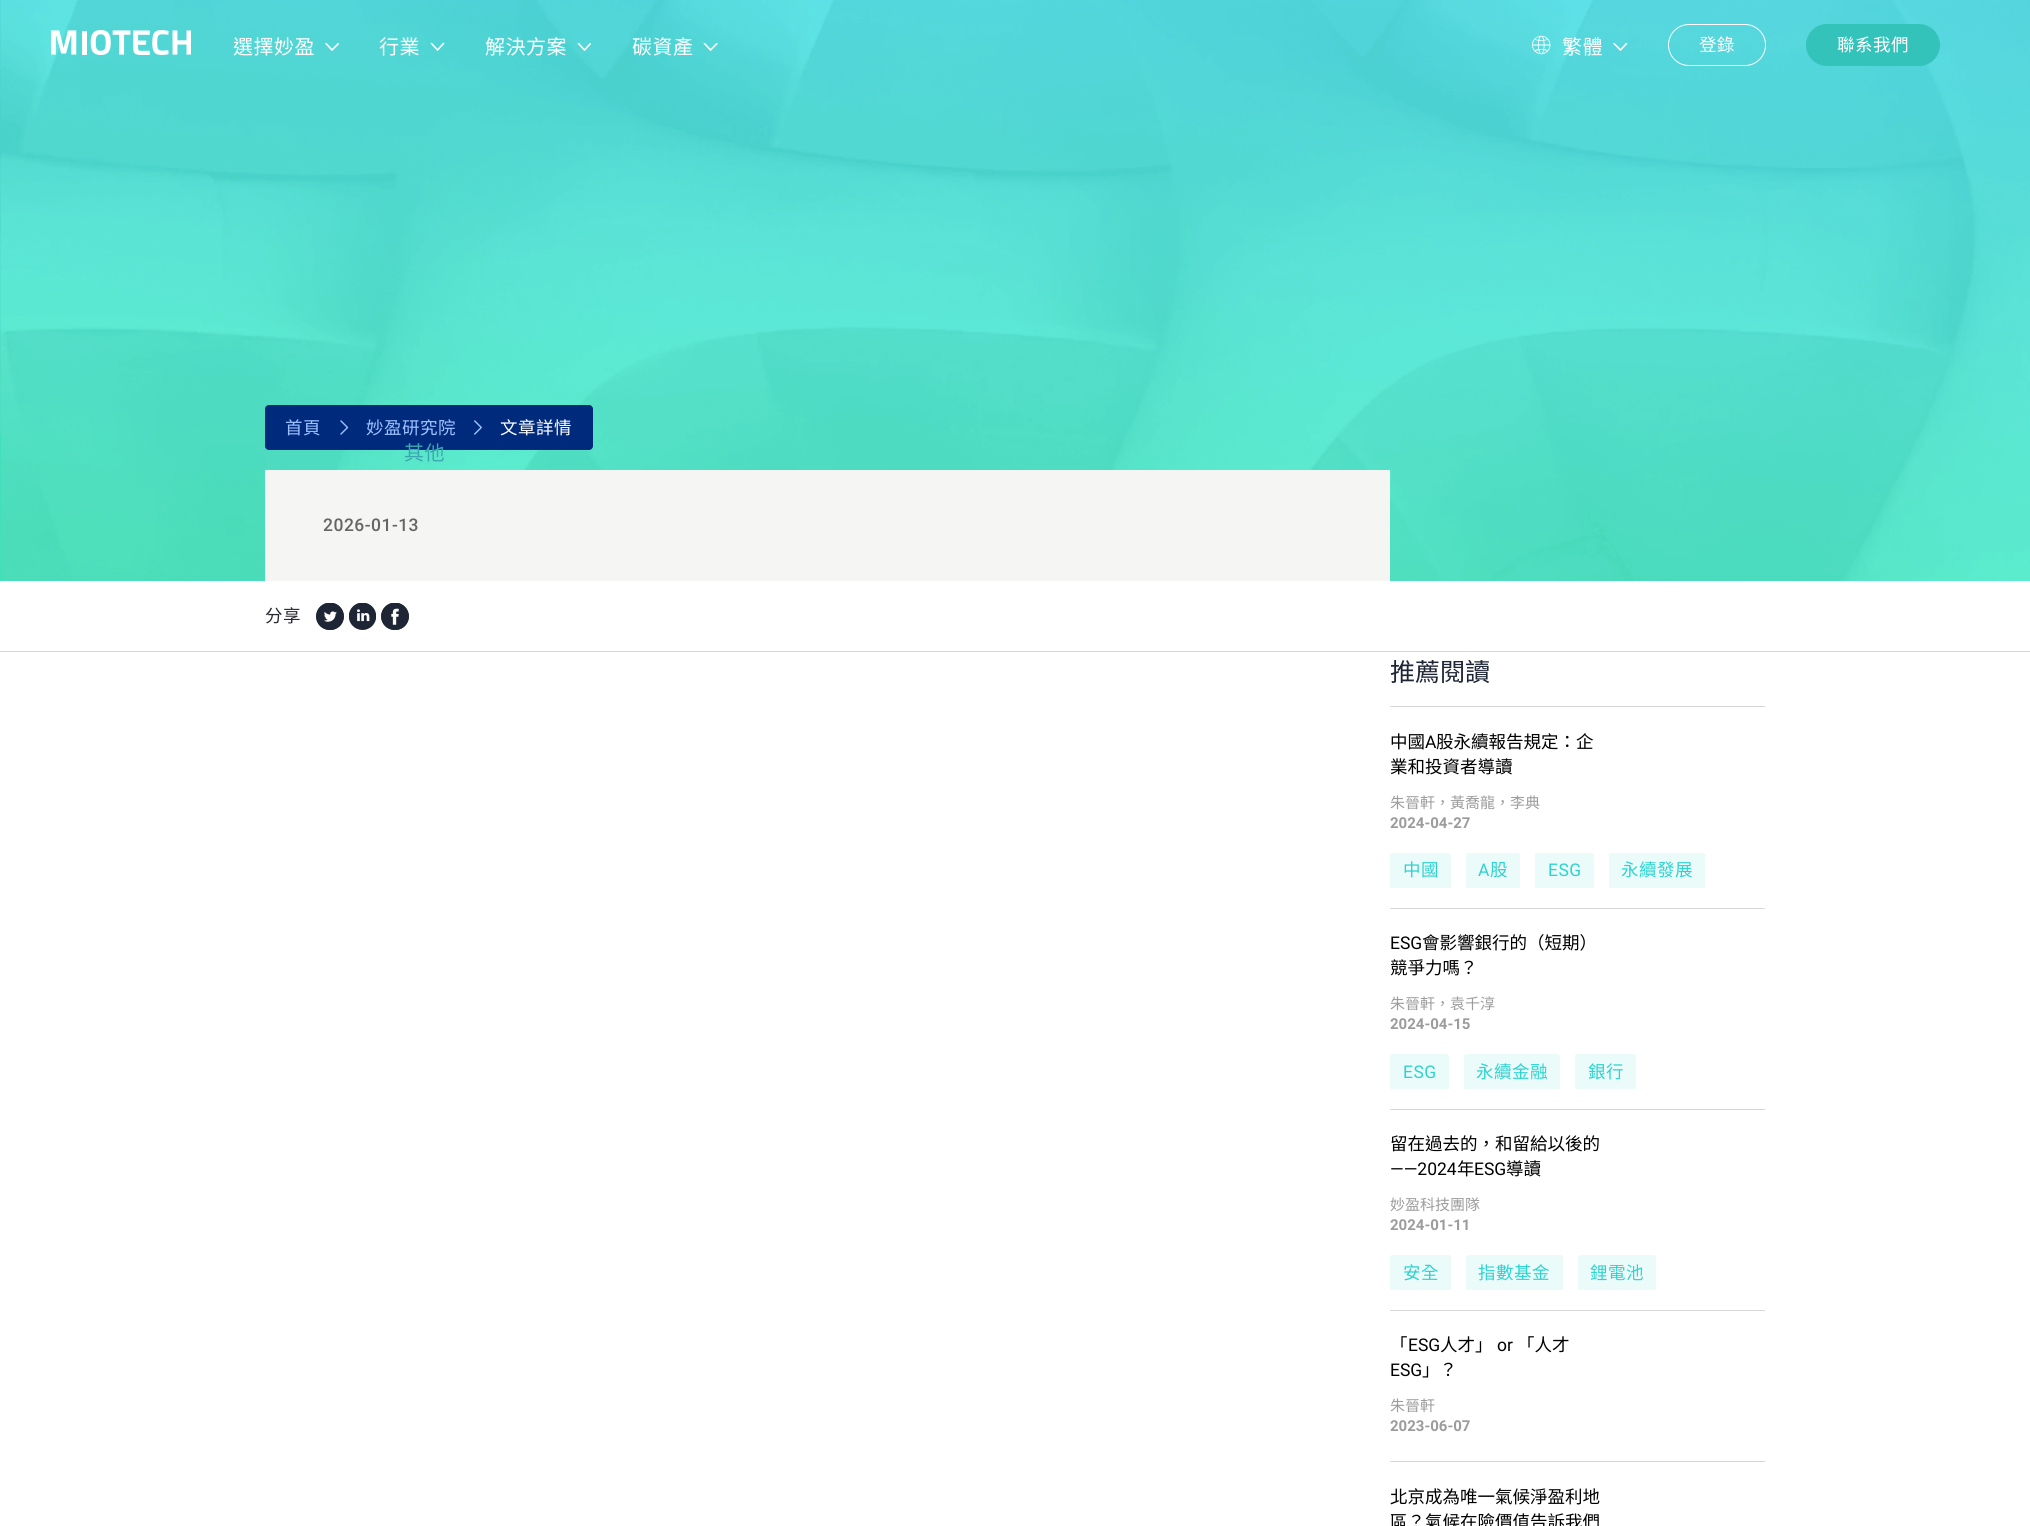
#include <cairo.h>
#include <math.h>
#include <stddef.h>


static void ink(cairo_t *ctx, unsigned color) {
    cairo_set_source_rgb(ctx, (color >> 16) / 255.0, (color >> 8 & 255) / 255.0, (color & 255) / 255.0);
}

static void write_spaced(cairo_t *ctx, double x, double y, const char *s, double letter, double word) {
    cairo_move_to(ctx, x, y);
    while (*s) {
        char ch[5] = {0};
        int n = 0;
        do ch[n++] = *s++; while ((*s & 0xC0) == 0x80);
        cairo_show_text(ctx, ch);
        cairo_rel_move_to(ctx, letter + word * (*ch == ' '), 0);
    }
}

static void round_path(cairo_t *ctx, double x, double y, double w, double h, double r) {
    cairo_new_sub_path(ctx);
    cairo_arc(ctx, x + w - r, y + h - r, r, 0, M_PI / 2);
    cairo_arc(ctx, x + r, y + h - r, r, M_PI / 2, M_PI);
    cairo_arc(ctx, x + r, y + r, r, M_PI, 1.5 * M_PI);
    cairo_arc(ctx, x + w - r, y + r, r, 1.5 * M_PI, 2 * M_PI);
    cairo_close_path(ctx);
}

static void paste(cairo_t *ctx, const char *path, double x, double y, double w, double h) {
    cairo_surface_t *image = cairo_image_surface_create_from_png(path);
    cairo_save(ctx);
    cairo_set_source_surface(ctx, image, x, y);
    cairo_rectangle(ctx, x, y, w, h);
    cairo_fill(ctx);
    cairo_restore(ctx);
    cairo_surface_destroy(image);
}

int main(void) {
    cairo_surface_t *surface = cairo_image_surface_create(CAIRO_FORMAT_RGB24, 2030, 1526);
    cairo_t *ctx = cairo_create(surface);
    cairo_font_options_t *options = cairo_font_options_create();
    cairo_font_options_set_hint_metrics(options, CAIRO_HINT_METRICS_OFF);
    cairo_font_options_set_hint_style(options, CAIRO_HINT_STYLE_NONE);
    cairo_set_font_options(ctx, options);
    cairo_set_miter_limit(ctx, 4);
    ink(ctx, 0xFFFFFF);
    cairo_paint(ctx);
    paste(ctx, "media/3.png", 0, 0, 2030, 581);
    paste(ctx, "media/1.png", 51, 30, 140, 25);
    cairo_select_font_face(ctx, "Noto Sans CJK HK", CAIRO_FONT_SLANT_NORMAL, CAIRO_FONT_WEIGHT_NORMAL);
    cairo_set_font_size(ctx, 20);
    ink(ctx, 0xFFFFFF);
    write_spaced(ctx, 233, 54, "選擇妙盈", 0.5, 0);
    cairo_save(ctx);
    cairo_rectangle(ctx, 324, 43, 15, 8);
    cairo_clip(ctx);
    cairo_new_path(ctx);
    cairo_move_to(ctx, 339, 43);
    cairo_line_to(ctx, 332, 50);
    cairo_line_to(ctx, 325.5, 43);
    cairo_set_line_width(ctx, 1.6);
    cairo_stroke(ctx);
    cairo_restore(ctx);
    write_spaced(ctx, 379, 54, "行業", 0.5, 0);
    cairo_new_path(ctx);
    cairo_move_to(ctx, 444, 43);
    cairo_line_to(ctx, 437.5, 50);
    cairo_line_to(ctx, 431, 43);
    cairo_set_line_width(ctx, 1.6);
    cairo_stroke(ctx);
    ink(ctx, 0x002B7D);
    round_path(ctx, 265, 405, 328, 45, 4);
    cairo_fill(ctx);
    ink(ctx, 0x3AA7B0);
    write_spaced(ctx, 404, 460, "其他", 0.5, 0);
    ink(ctx, 0xFFFFFF);
    write_spaced(ctx, 485, 54, "解決方案", 0.5, 0);
    cairo_save(ctx);
    cairo_rectangle(ctx, 576, 43, 15, 8);
    cairo_clip(ctx);
    cairo_new_path(ctx);
    cairo_move_to(ctx, 591, 43);
    cairo_line_to(ctx, 584.5, 50);
    cairo_line_to(ctx, 578, 43);
    cairo_stroke(ctx);
    cairo_restore(ctx);
    write_spaced(ctx, 632, 54, "碳資產", 0.5, 0);
    cairo_save(ctx);
    cairo_rectangle(ctx, 703, 43, 15, 8);
    cairo_clip(ctx);
    cairo_new_path(ctx);
    cairo_move_to(ctx, 717.5, 43);
    cairo_line_to(ctx, 710.5, 50);
    cairo_line_to(ctx, 704, 43);
    cairo_stroke(ctx);
    cairo_restore(ctx);
    paste(ctx, "media/2.png", 1532, 35, 19, 20);
    write_spaced(ctx, 1562, 54, "繁體", 0.5, 0);
    cairo_save(ctx);
    cairo_rectangle(ctx, 1613, 43, 15, 8);
    cairo_clip(ctx);
    cairo_new_path(ctx);
    cairo_move_to(ctx, 1627, 43);
    cairo_line_to(ctx, 1620.5, 50);
    cairo_line_to(ctx, 1613.5, 43);
    cairo_stroke(ctx);
    cairo_restore(ctx);
    round_path(ctx, 1668.5, 24.5, 97, 41, 20.5);
    cairo_set_line_width(ctx, 1);
    cairo_stroke(ctx);
    cairo_set_font_size(ctx, 17.5);
    write_spaced(ctx, 1699, 51, "登錄", 0.5, 0);
    ink(ctx, 0x34C3BA);
    round_path(ctx, 1806.5, 24.5, 133, 41, 20.5);
    cairo_fill_preserve(ctx);
    cairo_stroke(ctx);
    ink(ctx, 0xFFFFFF);
    write_spaced(ctx, 1837, 51, "聯系我們", 0.5, 0);
    ink(ctx, 0xA0C1FF);
    write_spaced(ctx, 285, 434, "首頁", 0.5, 0);
    paste(ctx, "media/4.png", 340, 420, 9, 15);
    write_spaced(ctx, 366, 434, "妙盈研究院", 0.5, 0);
    paste(ctx, "media/5.png", 474, 420, 8, 15);
    ink(ctx, 0xFFFFFF);
    write_spaced(ctx, 500, 434, "文章詳情", 0.5, 0);
    ink(ctx, 0xF5F5F3);
    cairo_rectangle(ctx, 265, 470, 1125, 111);
    cairo_fill(ctx);
    cairo_select_font_face(ctx, "Roboto Medium", CAIRO_FONT_SLANT_NORMAL, CAIRO_FONT_WEIGHT_NORMAL);
    ink(ctx, 0x666666);
    write_spaced(ctx, 323, 531, "2026-01-13", 0.5, 0);
    ink(ctx, 0xD8D8D8);
    cairo_rectangle(ctx, 0, 651, 2030, 1);
    cairo_fill(ctx);
    cairo_select_font_face(ctx, "Noto Sans CJK HK", CAIRO_FONT_SLANT_NORMAL, CAIRO_FONT_WEIGHT_NORMAL);
    ink(ctx, 0x262A2F);
    write_spaced(ctx, 265, 622, "分享", 0.5, 0);
    ink(ctx, 0x1E2534);
    round_path(ctx, 316, 603, 28, 27, 13.5);
    cairo_fill(ctx);
    paste(ctx, "media/6.png", 316, 603, 28, 27);
    paste(ctx, "media/7.png", 349, 603, 27, 27);
    round_path(ctx, 381, 603, 28, 27, 13.5);
    cairo_fill(ctx);
    paste(ctx, "media/8.png", 381, 603, 28, 27);
    ink(ctx, 0xD8D8D8);
    cairo_rectangle(ctx, 1390, 706, 375, 1);
    cairo_fill(ctx);
    cairo_set_font_size(ctx, 25);
    ink(ctx, 0x1E2534);
    cairo_move_to(ctx, 1390, 681);
    cairo_show_text(ctx, "推薦閱讀");
    ink(ctx, 0xD8D8D8);
    cairo_rectangle(ctx, 1390, 908, 375, 1);
    cairo_fill(ctx);
    cairo_set_font_size(ctx, 17.5);
    ink(ctx, 0x000000);
    cairo_move_to(ctx, 1390, 748);
    cairo_show_text(ctx, "中國");
    cairo_select_font_face(ctx, "Roboto", CAIRO_FONT_SLANT_NORMAL, CAIRO_FONT_WEIGHT_NORMAL);
    cairo_move_to(ctx, 1425, 748);
    cairo_show_text(ctx, "A");
    cairo_select_font_face(ctx, "Noto Sans CJK HK", CAIRO_FONT_SLANT_NORMAL, CAIRO_FONT_WEIGHT_NORMAL);
    cairo_move_to(ctx, 1436, 748);
    cairo_show_text(ctx, "股永續報告規定：企");
    cairo_move_to(ctx, 1390, 773);
    cairo_show_text(ctx, "業和投資者導讀");
    cairo_set_font_size(ctx, 15);
    ink(ctx, 0x9C9C9C);
    cairo_move_to(ctx, 1390, 808);
    cairo_show_text(ctx, "朱晉軒，黃喬龍，李典");
    cairo_select_font_face(ctx, "Roboto", CAIRO_FONT_SLANT_NORMAL, CAIRO_FONT_WEIGHT_BOLD);
    cairo_move_to(ctx, 1390, 828);
    cairo_show_text(ctx, "2024-04-27");
    cairo_save(ctx);
    cairo_rectangle(ctx, 1390, 838, 375, 50);
    cairo_clip(ctx);
    ink(ctx, 0xEBFBFA);
    round_path(ctx, 1390, 853, 61, 36, 2.5);
    cairo_fill(ctx);
    cairo_restore(ctx);
    cairo_select_font_face(ctx, "Noto Sans CJK HK", CAIRO_FONT_SLANT_NORMAL, CAIRO_FONT_WEIGHT_NORMAL);
    cairo_set_font_size(ctx, 17.5);
    ink(ctx, 0x2DD3D0);
    write_spaced(ctx, 1403, 876, "中國", 0.5, 0);
    cairo_save(ctx);
    cairo_rectangle(ctx, 1390, 838, 375, 50);
    cairo_clip(ctx);
    ink(ctx, 0xEBFBFA);
    round_path(ctx, 1466, 853, 54, 36, 2.5);
    cairo_fill(ctx);
    cairo_restore(ctx);
    cairo_select_font_face(ctx, "Roboto", CAIRO_FONT_SLANT_NORMAL, CAIRO_FONT_WEIGHT_NORMAL);
    write_spaced(ctx, 1478, 876, "A", 0.5, 0);
    cairo_select_font_face(ctx, "Noto Sans CJK HK", CAIRO_FONT_SLANT_NORMAL, CAIRO_FONT_WEIGHT_NORMAL);
    write_spaced(ctx, 1490, 876, "股", 0.5, 0);
    cairo_save(ctx);
    cairo_rectangle(ctx, 1390, 838, 375, 50);
    cairo_clip(ctx);
    ink(ctx, 0xEBFBFA);
    round_path(ctx, 1535, 853, 59, 36, 2.5);
    cairo_fill(ctx);
    cairo_restore(ctx);
    cairo_select_font_face(ctx, "Roboto", CAIRO_FONT_SLANT_NORMAL, CAIRO_FONT_WEIGHT_NORMAL);
    write_spaced(ctx, 1548, 876, "ESG", 0.5, 0);
    cairo_save(ctx);
    cairo_rectangle(ctx, 1390, 838, 375, 50);
    cairo_clip(ctx);
    ink(ctx, 0xEBFBFA);
    round_path(ctx, 1609, 853, 96, 36, 2.5);
    cairo_fill(ctx);
    cairo_restore(ctx);
    cairo_select_font_face(ctx, "Noto Sans CJK HK", CAIRO_FONT_SLANT_NORMAL, CAIRO_FONT_WEIGHT_NORMAL);
    write_spaced(ctx, 1621, 876, "永續發展", 0.5, 0);
    ink(ctx, 0xD8D8D8);
    cairo_rectangle(ctx, 1390, 1109, 375, 1);
    cairo_fill(ctx);
    cairo_select_font_face(ctx, "Roboto", CAIRO_FONT_SLANT_NORMAL, CAIRO_FONT_WEIGHT_NORMAL);
    ink(ctx, 0x000000);
    cairo_move_to(ctx, 1390, 949);
    cairo_show_text(ctx, "ESG");
    cairo_select_font_face(ctx, "Noto Sans CJK HK", CAIRO_FONT_SLANT_NORMAL, CAIRO_FONT_WEIGHT_NORMAL);
    cairo_move_to(ctx, 1422, 949);
    cairo_show_text(ctx, "會影響銀行的（短期）");
    cairo_move_to(ctx, 1390, 974);
    cairo_show_text(ctx, "競爭力嗎？");
    cairo_set_font_size(ctx, 15);
    ink(ctx, 0x9C9C9C);
    cairo_move_to(ctx, 1390, 1009);
    cairo_show_text(ctx, "朱晉軒，袁千淳");
    cairo_select_font_face(ctx, "Roboto", CAIRO_FONT_SLANT_NORMAL, CAIRO_FONT_WEIGHT_BOLD);
    cairo_move_to(ctx, 1390, 1029);
    cairo_show_text(ctx, "2024-04-15");
    cairo_save(ctx);
    cairo_rectangle(ctx, 1390, 1039, 375, 50);
    cairo_clip(ctx);
    ink(ctx, 0xEBFBFA);
    round_path(ctx, 1390, 1054, 59, 36, 2.5);
    cairo_fill(ctx);
    cairo_restore(ctx);
    cairo_select_font_face(ctx, "Roboto", CAIRO_FONT_SLANT_NORMAL, CAIRO_FONT_WEIGHT_NORMAL);
    cairo_set_font_size(ctx, 17.5);
    ink(ctx, 0x2DD3D0);
    write_spaced(ctx, 1403, 1078, "ESG", 0.5, 0);
    cairo_save(ctx);
    cairo_rectangle(ctx, 1390, 1039, 375, 50);
    cairo_clip(ctx);
    ink(ctx, 0xEBFBFA);
    round_path(ctx, 1464, 1054, 96, 36, 2.5);
    cairo_fill(ctx);
    cairo_restore(ctx);
    cairo_select_font_face(ctx, "Noto Sans CJK HK", CAIRO_FONT_SLANT_NORMAL, CAIRO_FONT_WEIGHT_NORMAL);
    write_spaced(ctx, 1476, 1078, "永續金融", 0.5, 0);
    cairo_save(ctx);
    cairo_rectangle(ctx, 1390, 1039, 375, 50);
    cairo_clip(ctx);
    ink(ctx, 0xEBFBFA);
    round_path(ctx, 1575, 1054, 61, 36, 2.5);
    cairo_fill(ctx);
    cairo_restore(ctx);
    write_spaced(ctx, 1588, 1078, "銀行", 0.5, 0);
    ink(ctx, 0xD8D8D8);
    cairo_rectangle(ctx, 1390, 1310, 375, 1);
    cairo_fill(ctx);
    ink(ctx, 0x000000);
    cairo_move_to(ctx, 1390, 1150);
    cairo_show_text(ctx, "留在過去的，和留給以後的");
    cairo_select_font_face(ctx, "Roboto", CAIRO_FONT_SLANT_NORMAL, CAIRO_FONT_WEIGHT_NORMAL);
    cairo_move_to(ctx, 1390, 1175);
    cairo_show_text(ctx, "——2024");
    cairo_select_font_face(ctx, "Noto Sans CJK HK", CAIRO_FONT_SLANT_NORMAL, CAIRO_FONT_WEIGHT_NORMAL);
    cairo_move_to(ctx, 1457, 1175);
    cairo_show_text(ctx, "年");
    cairo_select_font_face(ctx, "Roboto", CAIRO_FONT_SLANT_NORMAL, CAIRO_FONT_WEIGHT_NORMAL);
    cairo_move_to(ctx, 1474, 1175);
    cairo_show_text(ctx, "ESG");
    cairo_select_font_face(ctx, "Noto Sans CJK HK", CAIRO_FONT_SLANT_NORMAL, CAIRO_FONT_WEIGHT_NORMAL);
    cairo_move_to(ctx, 1506, 1175);
    cairo_show_text(ctx, "導讀");
    cairo_set_font_size(ctx, 15);
    ink(ctx, 0x9C9C9C);
    cairo_move_to(ctx, 1390, 1210);
    cairo_show_text(ctx, "妙盈科技團隊");
    cairo_select_font_face(ctx, "Roboto", CAIRO_FONT_SLANT_NORMAL, CAIRO_FONT_WEIGHT_BOLD);
    cairo_move_to(ctx, 1390, 1230);
    cairo_show_text(ctx, "2024-01-11");
    cairo_save(ctx);
    cairo_rectangle(ctx, 1390, 1240, 375, 50);
    cairo_clip(ctx);
    ink(ctx, 0xEBFBFA);
    round_path(ctx, 1390, 1255, 61, 36, 2.5);
    cairo_fill(ctx);
    cairo_restore(ctx);
    cairo_select_font_face(ctx, "Noto Sans CJK HK", CAIRO_FONT_SLANT_NORMAL, CAIRO_FONT_WEIGHT_NORMAL);
    cairo_set_font_size(ctx, 17.5);
    ink(ctx, 0x2DD3D0);
    write_spaced(ctx, 1403, 1279, "安全", 0.5, 0);
    cairo_save(ctx);
    cairo_rectangle(ctx, 1390, 1240, 375, 50);
    cairo_clip(ctx);
    ink(ctx, 0xEBFBFA);
    round_path(ctx, 1466, 1255, 97, 36, 2.5);
    cairo_fill(ctx);
    cairo_restore(ctx);
    write_spaced(ctx, 1478, 1279, "指數基金", 0.5, 0);
    cairo_save(ctx);
    cairo_rectangle(ctx, 1390, 1240, 375, 50);
    cairo_clip(ctx);
    ink(ctx, 0xEBFBFA);
    round_path(ctx, 1578, 1255, 78, 36, 2.5);
    cairo_fill(ctx);
    cairo_restore(ctx);
    write_spaced(ctx, 1590, 1279, "鋰電池", 0.5, 0);
    ink(ctx, 0xD8D8D8);
    cairo_rectangle(ctx, 1390, 1461, 375, 1);
    cairo_fill(ctx);
    ink(ctx, 0x000000);
    cairo_move_to(ctx, 1390, 1351);
    cairo_show_text(ctx, "「");
    cairo_select_font_face(ctx, "Roboto", CAIRO_FONT_SLANT_NORMAL, CAIRO_FONT_WEIGHT_NORMAL);
    cairo_move_to(ctx, 1408, 1351);
    cairo_show_text(ctx, "ESG");
    cairo_select_font_face(ctx, "Noto Sans CJK HK", CAIRO_FONT_SLANT_NORMAL, CAIRO_FONT_WEIGHT_NORMAL);
    cairo_move_to(ctx, 1440, 1351);
    cairo_show_text(ctx, "人才」");
    cairo_select_font_face(ctx, "Roboto", CAIRO_FONT_SLANT_NORMAL, CAIRO_FONT_WEIGHT_NORMAL);
    cairo_move_to(ctx, 1497, 1351);
    cairo_show_text(ctx, "or");
    cairo_select_font_face(ctx, "Noto Sans CJK HK", CAIRO_FONT_SLANT_NORMAL, CAIRO_FONT_WEIGHT_NORMAL);
    cairo_move_to(ctx, 1517, 1351);
    cairo_show_text(ctx, "「人才");
    cairo_select_font_face(ctx, "Roboto", CAIRO_FONT_SLANT_NORMAL, CAIRO_FONT_WEIGHT_NORMAL);
    cairo_move_to(ctx, 1390, 1376);
    cairo_show_text(ctx, "ESG");
    cairo_select_font_face(ctx, "Noto Sans CJK HK", CAIRO_FONT_SLANT_NORMAL, CAIRO_FONT_WEIGHT_NORMAL);
    cairo_move_to(ctx, 1422, 1376);
    cairo_show_text(ctx, "」？");
    cairo_set_font_size(ctx, 15);
    ink(ctx, 0x9C9C9C);
    cairo_move_to(ctx, 1390, 1411);
    cairo_show_text(ctx, "朱晉軒");
    cairo_select_font_face(ctx, "Roboto", CAIRO_FONT_SLANT_NORMAL, CAIRO_FONT_WEIGHT_BOLD);
    cairo_move_to(ctx, 1390, 1431);
    cairo_show_text(ctx, "2023-06-07");
    cairo_select_font_face(ctx, "Noto Sans CJK HK", CAIRO_FONT_SLANT_NORMAL, CAIRO_FONT_WEIGHT_NORMAL);
    cairo_set_font_size(ctx, 17.5);
    ink(ctx, 0x000000);
    cairo_move_to(ctx, 1390, 1503);
    cairo_show_text(ctx, "北京成為唯一氣候淨盈利地");
    cairo_move_to(ctx, 1390, 1528);
    cairo_show_text(ctx, "區？氣候在險價值告訴我們");
    cairo_surface_write_to_png(surface, "image.png");
    cairo_font_options_destroy(options);
    cairo_destroy(ctx);
    cairo_surface_destroy(surface);
    return 0;
}
